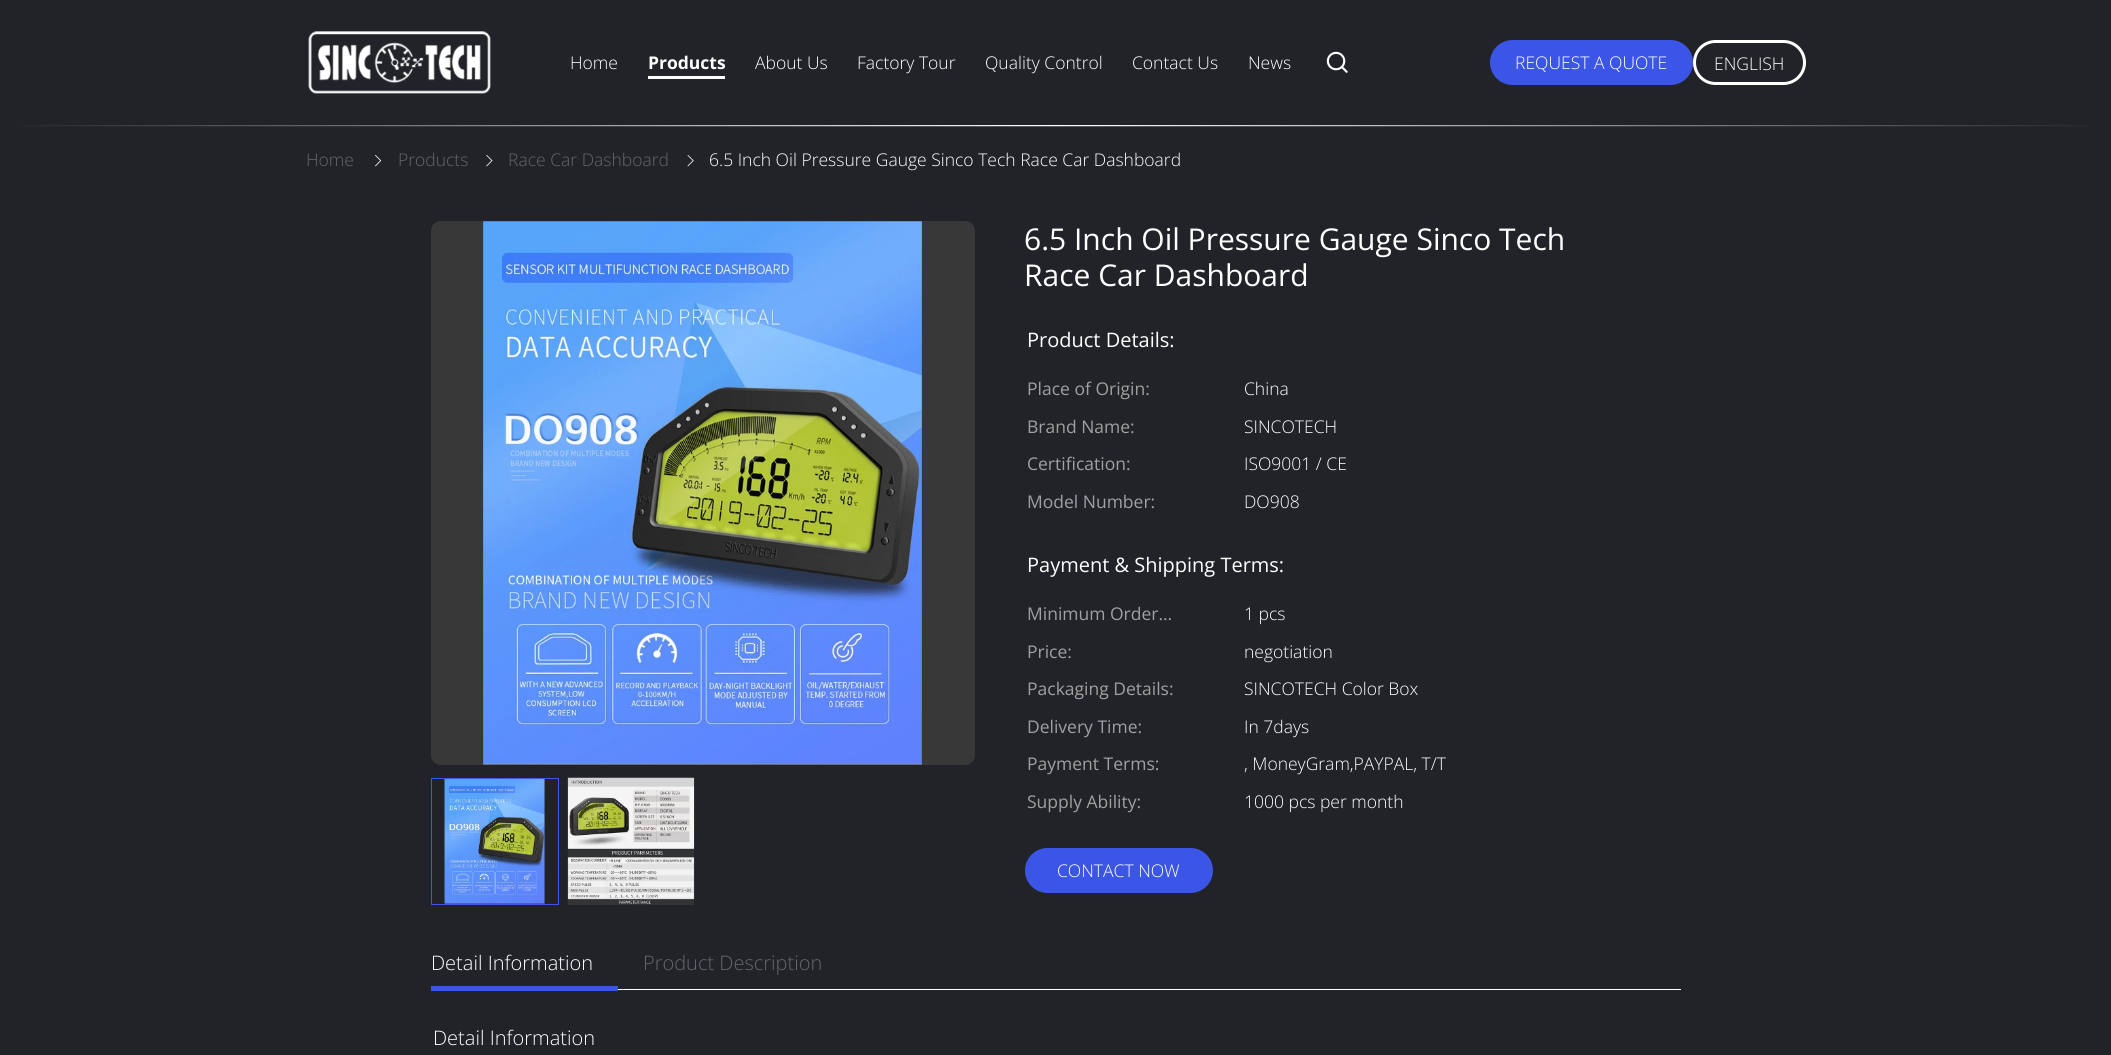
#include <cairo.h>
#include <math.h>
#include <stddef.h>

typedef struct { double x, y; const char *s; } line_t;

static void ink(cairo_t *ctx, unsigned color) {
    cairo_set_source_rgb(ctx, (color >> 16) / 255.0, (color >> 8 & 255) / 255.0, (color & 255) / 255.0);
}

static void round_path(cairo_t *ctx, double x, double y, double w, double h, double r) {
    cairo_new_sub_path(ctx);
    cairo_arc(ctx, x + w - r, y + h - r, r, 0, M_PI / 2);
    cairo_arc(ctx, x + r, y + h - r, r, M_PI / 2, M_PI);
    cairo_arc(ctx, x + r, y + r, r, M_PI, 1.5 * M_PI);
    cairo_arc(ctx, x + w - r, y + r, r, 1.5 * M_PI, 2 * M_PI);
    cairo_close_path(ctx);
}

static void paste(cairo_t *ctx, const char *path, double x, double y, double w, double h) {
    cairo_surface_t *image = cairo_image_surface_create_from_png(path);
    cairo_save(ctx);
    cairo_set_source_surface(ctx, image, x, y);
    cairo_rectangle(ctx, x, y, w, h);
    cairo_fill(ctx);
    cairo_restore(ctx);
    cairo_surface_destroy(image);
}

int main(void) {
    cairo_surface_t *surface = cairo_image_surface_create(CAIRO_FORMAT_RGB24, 2111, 1055);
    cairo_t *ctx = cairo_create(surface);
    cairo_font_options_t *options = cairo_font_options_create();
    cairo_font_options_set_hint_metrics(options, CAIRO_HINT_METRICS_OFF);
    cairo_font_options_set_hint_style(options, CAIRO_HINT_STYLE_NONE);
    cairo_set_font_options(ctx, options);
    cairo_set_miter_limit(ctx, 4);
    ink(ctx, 0x222328);
    cairo_paint(ctx);
    paste(ctx, "media/1.png", 22, 125, 2068, 2);
    paste(ctx, "media/2.png", 308, 31, 183, 63);
    cairo_select_font_face(ctx, "Open Sans Light", CAIRO_FONT_SLANT_NORMAL, CAIRO_FONT_WEIGHT_NORMAL);
    cairo_set_font_size(ctx, 17.5);
    ink(ctx, 0xFFFFFF);
    cairo_move_to(ctx, 570, 69);
    cairo_show_text(ctx, "Home");
    cairo_select_font_face(ctx, "Open Sans", CAIRO_FONT_SLANT_NORMAL, CAIRO_FONT_WEIGHT_BOLD);
    cairo_move_to(ctx, 648, 69);
    cairo_show_text(ctx, "Products");
    cairo_rectangle(ctx, 648, 76, 77, 3);
    cairo_fill(ctx);
    cairo_select_font_face(ctx, "Open Sans Light", CAIRO_FONT_SLANT_NORMAL, CAIRO_FONT_WEIGHT_NORMAL);
    {
        static const line_t items[] = {
            {755, 69, "About Us"},
            {857, 69, "Factory Tour"},
            {985, 69, "Quality Control"},
            {1132, 69, "Contact Us"},
            {1248, 69, "News"},
        };
        for (size_t i = 0; i < sizeof items / sizeof *items; i++) {
            cairo_move_to(ctx, items[i].x, items[i].y);
            cairo_show_text(ctx, items[i].s);
        }
    }
    paste(ctx, "media/3.png", 1326, 51, 22, 22);
    ink(ctx, 0x3B55E6);
    round_path(ctx, 1490, 40, 203, 45, 22.5);
    cairo_fill(ctx);
    ink(ctx, 0xFFFFFF);
    cairo_move_to(ctx, 1515, 69);
    cairo_show_text(ctx, "REQUEST A QUOTE");
    round_path(ctx, 1694.5, 41.5, 110, 42, 21);
    cairo_set_line_width(ctx, 3);
    cairo_stroke(ctx);
    cairo_move_to(ctx, 1714, 70);
    cairo_show_text(ctx, "ENGLISH");
    ink(ctx, 0x666666);
    cairo_move_to(ctx, 306, 166);
    cairo_show_text(ctx, "Home");
    paste(ctx, "media/4.png", 375, 154, 7, 13);
    cairo_move_to(ctx, 398, 166);
    cairo_show_text(ctx, "Products");
    paste(ctx, "media/5.png", 486, 154, 7, 13);
    cairo_move_to(ctx, 508, 166);
    cairo_show_text(ctx, "Race Car Dashboard");
    paste(ctx, "media/6.png", 687, 155, 7, 12);
    ink(ctx, 0xFFFFFF);
    cairo_move_to(ctx, 709, 166);
    cairo_show_text(ctx, "6.5 Inch Oil Pressure Gauge Sinco Tech Race Car Dashboard");
    ink(ctx, 0x383838);
    round_path(ctx, 431, 221, 544, 544, 10);
    cairo_fill(ctx);
    paste(ctx, "media/7.png", 483, 221, 439, 544);
    cairo_rectangle(ctx, 431.5, 778.5, 127, 126);
    ink(ctx, 0x3B55E6);
    cairo_set_line_width(ctx, 1);
    cairo_stroke(ctx);
    paste(ctx, "media/8.png", 444, 778, 101, 126);
    paste(ctx, "media/9.png", 567, 777, 128, 128);
    cairo_select_font_face(ctx, "Open Sans", CAIRO_FONT_SLANT_NORMAL, CAIRO_FONT_WEIGHT_NORMAL);
    cairo_set_font_size(ctx, 30);
    ink(ctx, 0xFFFFFF);
    cairo_move_to(ctx, 1024, 250);
    cairo_show_text(ctx, "6.5 Inch Oil Pressure Gauge Sinco Tech");
    cairo_move_to(ctx, 1024, 286);
    cairo_show_text(ctx, "Race Car Dashboard");
    cairo_set_font_size(ctx, 20);
    cairo_move_to(ctx, 1027, 347);
    cairo_show_text(ctx, "Product Details:");
    cairo_set_font_size(ctx, 17.5);
    ink(ctx, 0xA0A0A0);
    cairo_move_to(ctx, 1027, 395);
    cairo_show_text(ctx, "Place of Origin:");
    cairo_select_font_face(ctx, "Open Sans Light", CAIRO_FONT_SLANT_NORMAL, CAIRO_FONT_WEIGHT_NORMAL);
    ink(ctx, 0xFFFFFF);
    cairo_move_to(ctx, 1244, 395);
    cairo_show_text(ctx, "China");
    cairo_select_font_face(ctx, "Open Sans", CAIRO_FONT_SLANT_NORMAL, CAIRO_FONT_WEIGHT_NORMAL);
    ink(ctx, 0xA0A0A0);
    cairo_move_to(ctx, 1027, 433);
    cairo_show_text(ctx, "Brand Name:");
    cairo_select_font_face(ctx, "Open Sans Light", CAIRO_FONT_SLANT_NORMAL, CAIRO_FONT_WEIGHT_NORMAL);
    ink(ctx, 0xFFFFFF);
    cairo_move_to(ctx, 1244, 433);
    cairo_show_text(ctx, "SINCOTECH");
    cairo_select_font_face(ctx, "Open Sans", CAIRO_FONT_SLANT_NORMAL, CAIRO_FONT_WEIGHT_NORMAL);
    ink(ctx, 0xA0A0A0);
    cairo_move_to(ctx, 1027, 470);
    cairo_show_text(ctx, "Certification:");
    cairo_select_font_face(ctx, "Open Sans Light", CAIRO_FONT_SLANT_NORMAL, CAIRO_FONT_WEIGHT_NORMAL);
    ink(ctx, 0xFFFFFF);
    cairo_move_to(ctx, 1244, 470);
    cairo_show_text(ctx, "ISO9001 / CE");
    cairo_select_font_face(ctx, "Open Sans", CAIRO_FONT_SLANT_NORMAL, CAIRO_FONT_WEIGHT_NORMAL);
    ink(ctx, 0xA0A0A0);
    cairo_move_to(ctx, 1027, 508);
    cairo_show_text(ctx, "Model Number:");
    cairo_select_font_face(ctx, "Open Sans Light", CAIRO_FONT_SLANT_NORMAL, CAIRO_FONT_WEIGHT_NORMAL);
    ink(ctx, 0xFFFFFF);
    cairo_move_to(ctx, 1244, 508);
    cairo_show_text(ctx, "DO908");
    cairo_select_font_face(ctx, "Open Sans", CAIRO_FONT_SLANT_NORMAL, CAIRO_FONT_WEIGHT_NORMAL);
    cairo_set_font_size(ctx, 20);
    cairo_move_to(ctx, 1027, 572);
    cairo_show_text(ctx, "Payment & Shipping Terms:");
    cairo_set_font_size(ctx, 17.5);
    ink(ctx, 0xA0A0A0);
    cairo_move_to(ctx, 1027, 620);
    cairo_show_text(ctx, "Minimum Order…");
    cairo_select_font_face(ctx, "Open Sans Light", CAIRO_FONT_SLANT_NORMAL, CAIRO_FONT_WEIGHT_NORMAL);
    ink(ctx, 0xFFFFFF);
    cairo_move_to(ctx, 1244, 620);
    cairo_show_text(ctx, "1 pcs");
    cairo_select_font_face(ctx, "Open Sans", CAIRO_FONT_SLANT_NORMAL, CAIRO_FONT_WEIGHT_NORMAL);
    ink(ctx, 0xA0A0A0);
    cairo_move_to(ctx, 1027, 658);
    cairo_show_text(ctx, "Price:");
    cairo_select_font_face(ctx, "Open Sans Light", CAIRO_FONT_SLANT_NORMAL, CAIRO_FONT_WEIGHT_NORMAL);
    ink(ctx, 0xFFFFFF);
    cairo_move_to(ctx, 1244, 658);
    cairo_show_text(ctx, "negotiation");
    cairo_select_font_face(ctx, "Open Sans", CAIRO_FONT_SLANT_NORMAL, CAIRO_FONT_WEIGHT_NORMAL);
    ink(ctx, 0xA0A0A0);
    cairo_move_to(ctx, 1027, 695);
    cairo_show_text(ctx, "Packaging Details:");
    cairo_select_font_face(ctx, "Open Sans Light", CAIRO_FONT_SLANT_NORMAL, CAIRO_FONT_WEIGHT_NORMAL);
    ink(ctx, 0xFFFFFF);
    cairo_move_to(ctx, 1244, 695);
    cairo_show_text(ctx, "SINCOTECH Color Box");
    cairo_select_font_face(ctx, "Open Sans", CAIRO_FONT_SLANT_NORMAL, CAIRO_FONT_WEIGHT_NORMAL);
    ink(ctx, 0xA0A0A0);
    cairo_move_to(ctx, 1027, 733);
    cairo_show_text(ctx, "Delivery Time:");
    cairo_select_font_face(ctx, "Open Sans Light", CAIRO_FONT_SLANT_NORMAL, CAIRO_FONT_WEIGHT_NORMAL);
    ink(ctx, 0xFFFFFF);
    cairo_move_to(ctx, 1244, 733);
    cairo_show_text(ctx, "In 7days");
    cairo_select_font_face(ctx, "Open Sans", CAIRO_FONT_SLANT_NORMAL, CAIRO_FONT_WEIGHT_NORMAL);
    ink(ctx, 0xA0A0A0);
    cairo_move_to(ctx, 1027, 770);
    cairo_show_text(ctx, "Payment Terms:");
    cairo_select_font_face(ctx, "Open Sans Light", CAIRO_FONT_SLANT_NORMAL, CAIRO_FONT_WEIGHT_NORMAL);
    ink(ctx, 0xFFFFFF);
    cairo_move_to(ctx, 1244, 770);
    cairo_show_text(ctx, ", MoneyGram,PAYPAL, T/T");
    cairo_select_font_face(ctx, "Open Sans", CAIRO_FONT_SLANT_NORMAL, CAIRO_FONT_WEIGHT_NORMAL);
    ink(ctx, 0xA0A0A0);
    cairo_move_to(ctx, 1027, 808);
    cairo_show_text(ctx, "Supply Ability:");
    cairo_select_font_face(ctx, "Open Sans Light", CAIRO_FONT_SLANT_NORMAL, CAIRO_FONT_WEIGHT_NORMAL);
    ink(ctx, 0xFFFFFF);
    cairo_move_to(ctx, 1244, 808);
    cairo_show_text(ctx, "1000 pcs per month");
    ink(ctx, 0x3B55E6);
    round_path(ctx, 1025, 848, 188, 45, 22.5);
    cairo_fill(ctx);
    ink(ctx, 0xFFFFFF);
    cairo_move_to(ctx, 1057, 877);
    cairo_show_text(ctx, "CONTACT NOW");
    cairo_rectangle(ctx, 618, 989, 1063, 1);
    cairo_fill(ctx);
    ink(ctx, 0x3B55E6);
    cairo_rectangle(ctx, 431, 986, 187, 5);
    cairo_fill(ctx);
    cairo_set_font_size(ctx, 20);
    ink(ctx, 0xFFFFFF);
    cairo_move_to(ctx, 431, 970);
    cairo_show_text(ctx, "Detail Information");
    ink(ctx, 0x666666);
    cairo_move_to(ctx, 643, 970);
    cairo_show_text(ctx, "Product Description");
    ink(ctx, 0xFFFFFF);
    cairo_move_to(ctx, 433, 1045);
    cairo_show_text(ctx, "Detail Information");
    cairo_surface_write_to_png(surface, "image.png");
    cairo_font_options_destroy(options);
    cairo_destroy(ctx);
    cairo_surface_destroy(surface);
    return 0;
}
